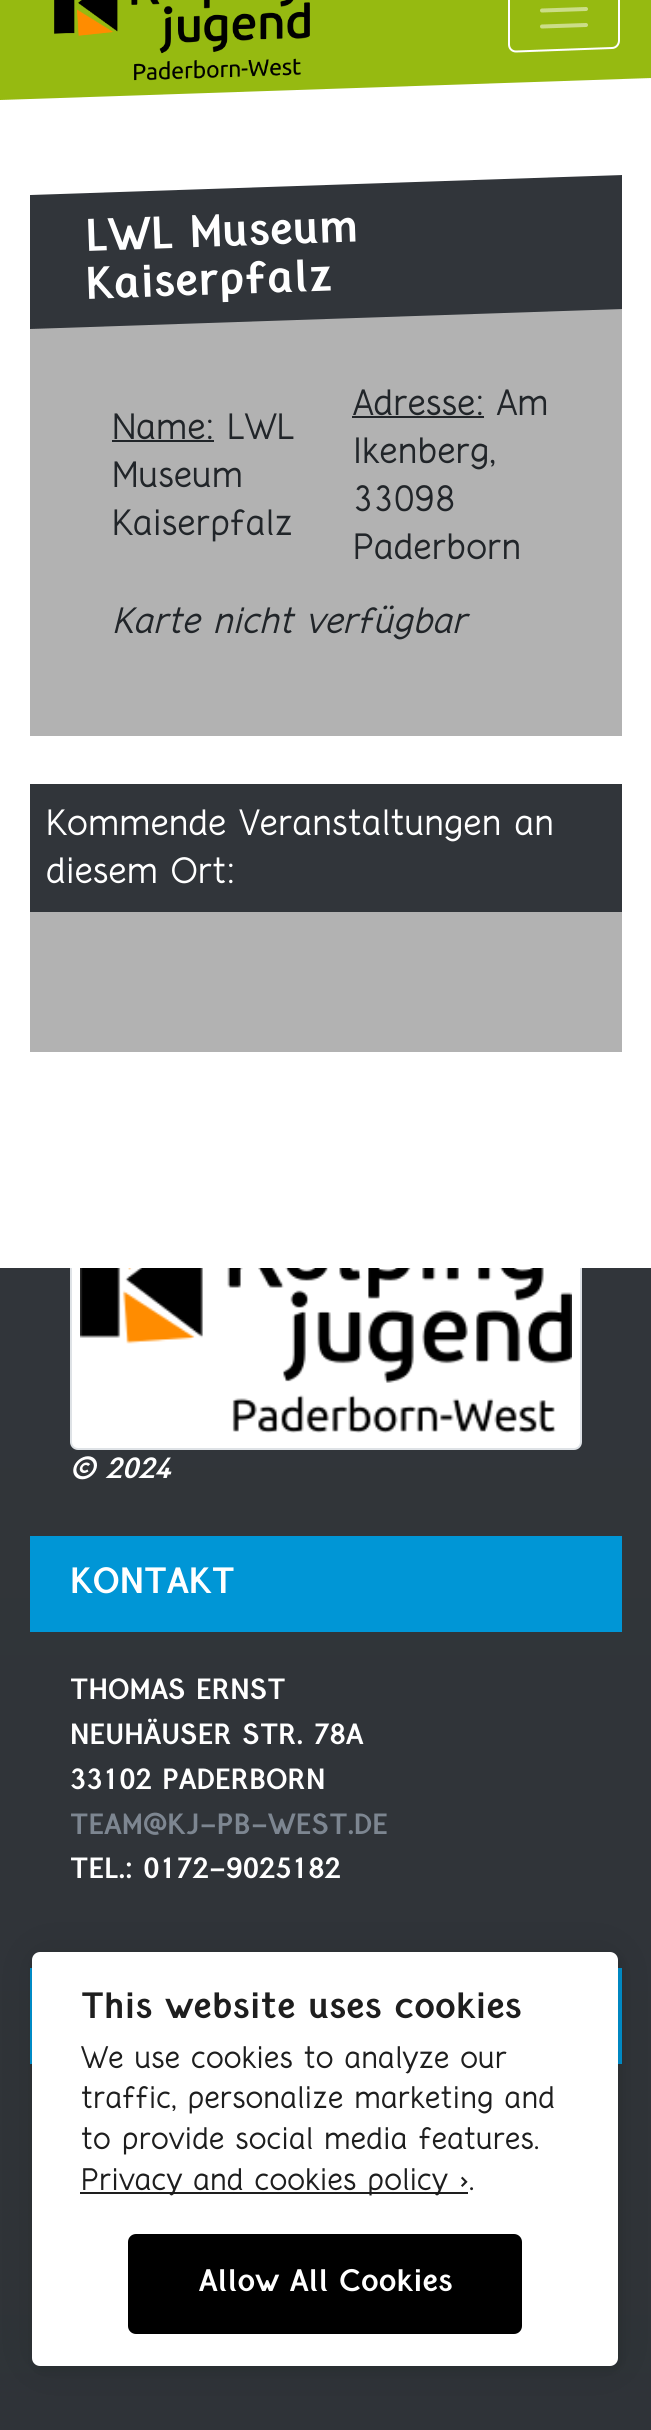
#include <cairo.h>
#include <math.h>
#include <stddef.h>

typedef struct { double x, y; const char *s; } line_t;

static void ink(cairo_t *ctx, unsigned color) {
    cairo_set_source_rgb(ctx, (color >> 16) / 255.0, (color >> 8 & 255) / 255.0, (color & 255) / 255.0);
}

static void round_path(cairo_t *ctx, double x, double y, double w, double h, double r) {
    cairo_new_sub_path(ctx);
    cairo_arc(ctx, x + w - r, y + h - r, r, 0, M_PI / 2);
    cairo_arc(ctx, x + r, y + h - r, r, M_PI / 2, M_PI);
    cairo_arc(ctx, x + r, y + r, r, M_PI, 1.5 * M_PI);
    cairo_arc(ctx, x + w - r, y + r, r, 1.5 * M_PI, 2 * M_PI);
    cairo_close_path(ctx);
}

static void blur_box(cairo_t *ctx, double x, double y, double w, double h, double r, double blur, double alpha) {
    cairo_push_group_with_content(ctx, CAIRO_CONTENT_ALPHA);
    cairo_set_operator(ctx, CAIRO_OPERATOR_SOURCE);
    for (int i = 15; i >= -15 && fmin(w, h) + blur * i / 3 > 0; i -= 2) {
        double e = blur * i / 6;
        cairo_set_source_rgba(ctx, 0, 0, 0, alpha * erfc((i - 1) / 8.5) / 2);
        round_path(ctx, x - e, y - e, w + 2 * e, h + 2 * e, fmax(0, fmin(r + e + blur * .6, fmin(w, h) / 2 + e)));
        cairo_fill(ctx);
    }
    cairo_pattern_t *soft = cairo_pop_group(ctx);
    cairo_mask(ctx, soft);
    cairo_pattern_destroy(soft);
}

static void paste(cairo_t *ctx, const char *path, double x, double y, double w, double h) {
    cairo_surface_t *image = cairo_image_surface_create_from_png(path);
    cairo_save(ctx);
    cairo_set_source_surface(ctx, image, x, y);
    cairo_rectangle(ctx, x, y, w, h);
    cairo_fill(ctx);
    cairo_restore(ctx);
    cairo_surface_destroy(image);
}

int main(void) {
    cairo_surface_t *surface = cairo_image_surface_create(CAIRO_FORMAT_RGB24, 651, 2430);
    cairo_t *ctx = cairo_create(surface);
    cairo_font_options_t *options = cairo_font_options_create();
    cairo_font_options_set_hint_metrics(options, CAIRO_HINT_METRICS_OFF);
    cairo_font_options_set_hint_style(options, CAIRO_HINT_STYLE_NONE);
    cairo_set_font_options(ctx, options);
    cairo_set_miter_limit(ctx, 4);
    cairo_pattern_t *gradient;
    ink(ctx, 0xFFFFFF);
    cairo_paint(ctx);
    ink(ctx, 0x96BA11);
    cairo_new_path(ctx);
    cairo_move_to(ctx, 0, -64);
    cairo_line_to(ctx, 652, -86);
    cairo_line_to(ctx, 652, 78);
    cairo_line_to(ctx, 0, 100);
    cairo_close_path(ctx);
    cairo_fill(ctx);
    paste(ctx, "media/1.png", 54, 0, 256, 81);
    cairo_new_path(ctx);
    cairo_move_to(ctx, 516, -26.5);
    cairo_line_to(ctx, 612, -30);
    cairo_curve_to(ctx, 616, -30, 619, -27, 619, -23.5);
    cairo_line_to(ctx, 619, 40.5);
    cairo_curve_to(ctx, 619, 44.5, 616, 48, 612, 48);
    cairo_line_to(ctx, 516, 51.5);
    cairo_curve_to(ctx, 512, 51.5, 509, 48.5, 509, 44.5);
    cairo_line_to(ctx, 509, -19.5);
    cairo_curve_to(ctx, 509, -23.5, 512, -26.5, 516, -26.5);
    cairo_close_path(ctx);
    ink(ctx, 0xFFFFFF);
    cairo_stroke(ctx);
    cairo_new_path(ctx);
    cairo_move_to(ctx, 542, -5.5);
    cairo_line_to(ctx, 586, -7);
    cairo_move_to(ctx, 542, 10.5);
    cairo_line_to(ctx, 586, 9);
    cairo_move_to(ctx, 542, 26.5);
    cairo_line_to(ctx, 586, 25);
    ink(ctx, 0xCBDD88);
    cairo_set_line_width(ctx, 4);
    cairo_set_line_cap(ctx, CAIRO_LINE_CAP_ROUND);
    cairo_stroke(ctx);
    gradient = cairo_pattern_create_linear(326, 1268, 326, 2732);
    cairo_pattern_add_color_stop_rgba(gradient, 0, 0.192, 0.208, 0.227, 1);
    cairo_pattern_add_color_stop_rgba(gradient, 1, 0.184, 0.2, 0.216, 1);
    cairo_set_source(ctx, gradient);
    cairo_pattern_destroy(gradient);
    cairo_rectangle(ctx, 0, 1268, 651, 1162);
    cairo_fill(ctx);
    ink(ctx, 0xFFFFFF);
    round_path(ctx, 71, 1201, 510, 248, 7);
    cairo_fill_preserve(ctx);
    ink(ctx, 0xDEE2E6);
    cairo_set_line_width(ctx, 2);
    cairo_set_line_cap(ctx, CAIRO_LINE_CAP_BUTT);
    cairo_stroke(ctx);
    ink(ctx, 0xFFFFFF);
    cairo_rectangle(ctx, 70, 1200, 512, 68);
    cairo_fill(ctx);
    ink(ctx, 0xB2B2B2);
    cairo_rectangle(ctx, 30, 309, 592, 427);
    cairo_fill(ctx);
    ink(ctx, 0x31353A);
    cairo_new_path(ctx);
    cairo_move_to(ctx, 30, 195);
    cairo_line_to(ctx, 622, 175);
    cairo_line_to(ctx, 622, 309);
    cairo_line_to(ctx, 30, 329);
    cairo_close_path(ctx);
    cairo_fill(ctx);
    cairo_select_font_face(ctx, "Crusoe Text", CAIRO_FONT_SLANT_NORMAL, CAIRO_FONT_WEIGHT_BOLD);
    cairo_set_font_size(ctx, 40);
    ink(ctx, 0xFFFFFF);
    cairo_save(ctx);
    cairo_translate(ctx, 86, 251);
    cairo_rotate(ctx, -2 * M_PI / 180);
    cairo_move_to(ctx, 0, 0);
    cairo_show_text(ctx, "LWL Museum");
    cairo_restore(ctx);
    cairo_save(ctx);
    cairo_translate(ctx, 86, 299);
    cairo_rotate(ctx, -2 * M_PI / 180);
    cairo_move_to(ctx, 0, 0);
    cairo_show_text(ctx, "Kaiserpfalz");
    cairo_restore(ctx);
    cairo_select_font_face(ctx, "Crusoe Text", CAIRO_FONT_SLANT_NORMAL, CAIRO_FONT_WEIGHT_NORMAL);
    cairo_set_font_size(ctx, 32);
    ink(ctx, 0x212529);
    cairo_move_to(ctx, 112, 439);
    cairo_show_text(ctx, "Name: LWL");
    cairo_rectangle(ctx, 112, 440, 102, 2);
    cairo_fill(ctx);
    {
        static const line_t items[] = {
            {112, 487, "Museum"},
            {112, 535, "Kaiserpfalz"},
            {353, 415, "Adresse: Am"},
        };
        for (size_t i = 0; i < sizeof items / sizeof *items; i++) {
            cairo_move_to(ctx, items[i].x, items[i].y);
            cairo_show_text(ctx, items[i].s);
        }
    }
    cairo_rectangle(ctx, 352, 416, 132, 2);
    cairo_fill(ctx);
    {
        static const line_t items[] = {
            {353, 463, "Ikenberg,"},
            {353, 511, "33098"},
            {353, 559, "Paderborn"},
        };
        for (size_t i = 0; i < sizeof items / sizeof *items; i++) {
            cairo_move_to(ctx, items[i].x, items[i].y);
            cairo_show_text(ctx, items[i].s);
        }
    }
    cairo_select_font_face(ctx, "Crusoe Text", CAIRO_FONT_SLANT_ITALIC, CAIRO_FONT_WEIGHT_NORMAL);
    cairo_move_to(ctx, 112, 633);
    cairo_show_text(ctx, "Karte nicht verfügbar");
    ink(ctx, 0x31353A);
    cairo_rectangle(ctx, 30, 784, 592, 128);
    cairo_fill(ctx);
    cairo_select_font_face(ctx, "Crusoe Text", CAIRO_FONT_SLANT_NORMAL, CAIRO_FONT_WEIGHT_NORMAL);
    ink(ctx, 0xFFFFFF);
    cairo_move_to(ctx, 46, 835);
    cairo_show_text(ctx, "Kommende Veranstaltungen an");
    cairo_move_to(ctx, 46, 883);
    cairo_show_text(ctx, "diesem Ort:");
    ink(ctx, 0xB2B2B2);
    cairo_rectangle(ctx, 30, 912, 592, 140);
    cairo_fill(ctx);
    paste(ctx, "media/2.png", 80, 1268, 492, 165);
    cairo_select_font_face(ctx, "Crusoe Text", CAIRO_FONT_SLANT_ITALIC, CAIRO_FONT_WEIGHT_BOLD);
    cairo_set_font_size(ctx, 25.6);
    ink(ctx, 0xFFFFFF);
    cairo_move_to(ctx, 70, 1478);
    cairo_show_text(ctx, "© 2024");
    ink(ctx, 0x0096D6);
    cairo_rectangle(ctx, 30, 1536, 592, 96);
    cairo_fill(ctx);
    cairo_select_font_face(ctx, "Crusoe Text", CAIRO_FONT_SLANT_NORMAL, CAIRO_FONT_WEIGHT_BOLD);
    cairo_set_font_size(ctx, 32);
    ink(ctx, 0xFFFFFF);
    cairo_move_to(ctx, 70, 1593);
    cairo_show_text(ctx, "KONTAKT");
    cairo_set_font_size(ctx, 25.6);
    {
        static const line_t items[] = {
            {70, 1699, "THOMAS ERNST"},
            {70, 1744, "NEUHÄUSER STR. 78A"},
            {70, 1789, "33102 PADERBORN"},
        };
        for (size_t i = 0; i < sizeof items / sizeof *items; i++) {
            cairo_move_to(ctx, items[i].x, items[i].y);
            cairo_show_text(ctx, items[i].s);
        }
    }
    ink(ctx, 0x7D8691);
    cairo_move_to(ctx, 70, 1834);
    cairo_show_text(ctx, "TEAM@KJ-PB-WEST.DE");
    ink(ctx, 0xFFFFFF);
    cairo_move_to(ctx, 70, 1878);
    cairo_show_text(ctx, "TEL.: 0172-9025182");
    ink(ctx, 0x0096D6);
    cairo_rectangle(ctx, 30, 1968, 592, 96);
    cairo_fill(ctx);
    ink(ctx, 0x000000);
    blur_box(ctx, 34, 1956, 586, 414, 8, 5, 0.1);
    blur_box(ctx, 32, 1952, 586, 414, 8, 25, 0.1);
    ink(ctx, 0xFFFFFF);
    round_path(ctx, 32, 1952, 586, 414, 8);
    cairo_fill(ctx);
    cairo_set_font_size(ctx, 32);
    ink(ctx, 0x1E1E1E);
    cairo_move_to(ctx, 81, 2018);
    cairo_show_text(ctx, "This website uses cookies");
    cairo_select_font_face(ctx, "Crusoe Text", CAIRO_FONT_SLANT_NORMAL, CAIRO_FONT_WEIGHT_NORMAL);
    cairo_set_font_size(ctx, 27.25);
    {
        static const line_t items[] = {
            {81, 2068, "We use cookies to analyze our"},
            {81, 2108, "traffic, personalize marketing and"},
            {81, 2149, "to provide social media features."},
        };
        for (size_t i = 0; i < sizeof items / sizeof *items; i++) {
            cairo_move_to(ctx, items[i].x, items[i].y);
            cairo_show_text(ctx, items[i].s);
        }
    }
    cairo_rectangle(ctx, 80, 2192, 388, 2);
    cairo_fill(ctx);
    cairo_move_to(ctx, 81, 2190);
    cairo_show_text(ctx, "Privacy and cookies policy ›.");
    ink(ctx, 0x000000);
    round_path(ctx, 129, 2235, 392, 98, 7);
    cairo_fill_preserve(ctx);
    cairo_stroke(ctx);
    cairo_select_font_face(ctx, "Crusoe Text", CAIRO_FONT_SLANT_NORMAL, CAIRO_FONT_WEIGHT_BOLD);
    ink(ctx, 0xFFFFFF);
    cairo_move_to(ctx, 199, 2291);
    cairo_show_text(ctx, "Allow All Cookies");
    cairo_surface_write_to_png(surface, "image.png");
    cairo_font_options_destroy(options);
    cairo_destroy(ctx);
    cairo_surface_destroy(surface);
    return 0;
}
